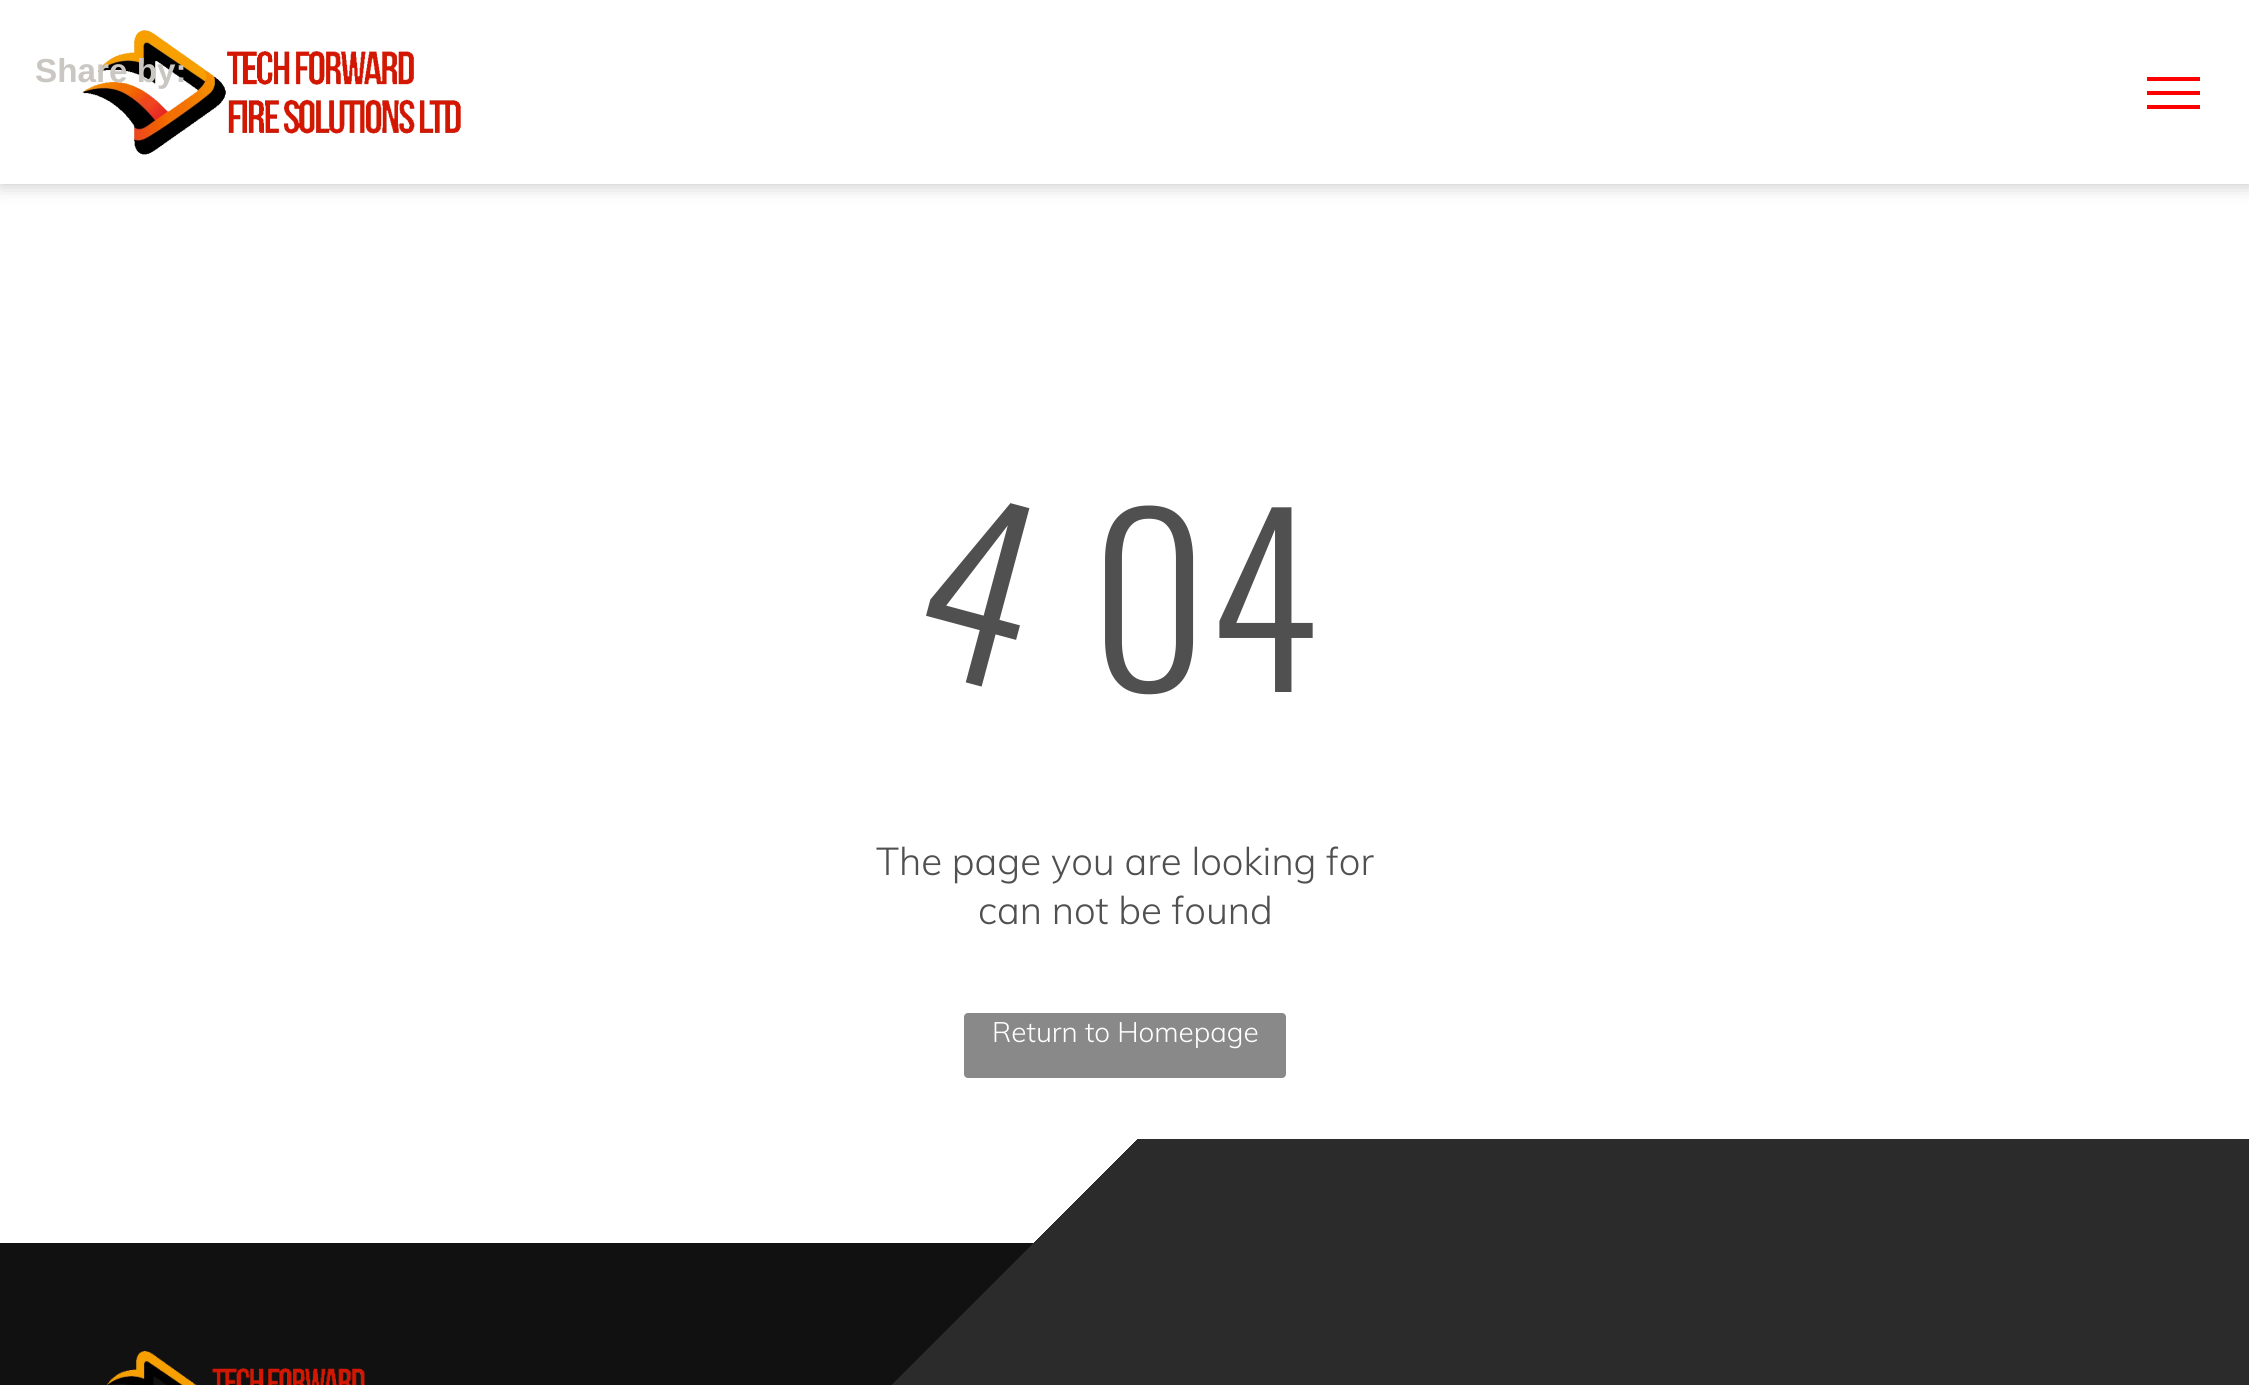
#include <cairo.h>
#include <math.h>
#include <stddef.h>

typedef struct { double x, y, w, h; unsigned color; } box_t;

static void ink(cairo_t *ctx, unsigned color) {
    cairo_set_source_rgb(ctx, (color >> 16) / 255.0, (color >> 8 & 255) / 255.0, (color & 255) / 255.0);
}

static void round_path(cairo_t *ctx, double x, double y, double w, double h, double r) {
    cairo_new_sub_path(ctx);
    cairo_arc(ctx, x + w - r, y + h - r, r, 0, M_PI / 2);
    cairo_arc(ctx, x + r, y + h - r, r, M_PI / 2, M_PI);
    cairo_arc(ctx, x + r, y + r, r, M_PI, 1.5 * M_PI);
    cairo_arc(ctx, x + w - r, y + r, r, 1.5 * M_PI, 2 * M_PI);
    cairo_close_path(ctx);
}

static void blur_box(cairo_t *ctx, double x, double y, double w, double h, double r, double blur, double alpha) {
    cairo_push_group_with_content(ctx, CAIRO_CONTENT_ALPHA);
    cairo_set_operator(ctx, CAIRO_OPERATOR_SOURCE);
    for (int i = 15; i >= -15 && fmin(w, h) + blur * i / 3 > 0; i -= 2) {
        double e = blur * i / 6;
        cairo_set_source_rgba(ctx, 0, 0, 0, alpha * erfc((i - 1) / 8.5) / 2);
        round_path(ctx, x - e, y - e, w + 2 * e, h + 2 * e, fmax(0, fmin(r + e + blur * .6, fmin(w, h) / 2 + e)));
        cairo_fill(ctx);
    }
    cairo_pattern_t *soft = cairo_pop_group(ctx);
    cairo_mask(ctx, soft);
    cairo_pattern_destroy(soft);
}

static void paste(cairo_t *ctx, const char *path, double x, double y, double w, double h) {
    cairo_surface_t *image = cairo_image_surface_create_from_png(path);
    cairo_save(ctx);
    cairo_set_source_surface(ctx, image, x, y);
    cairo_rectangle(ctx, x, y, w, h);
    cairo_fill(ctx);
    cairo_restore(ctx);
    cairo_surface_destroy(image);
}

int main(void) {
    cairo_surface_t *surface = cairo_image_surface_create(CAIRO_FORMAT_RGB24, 2249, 1385);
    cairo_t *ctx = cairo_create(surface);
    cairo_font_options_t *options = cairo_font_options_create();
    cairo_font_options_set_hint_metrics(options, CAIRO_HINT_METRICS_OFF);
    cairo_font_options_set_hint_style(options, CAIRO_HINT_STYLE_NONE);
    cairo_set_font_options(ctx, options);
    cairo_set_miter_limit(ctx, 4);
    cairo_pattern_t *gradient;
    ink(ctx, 0xFFFFFF);
    cairo_paint(ctx);
    ink(ctx, 0x000000);
    blur_box(ctx, 0, 0, 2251, 184, 0, 9.5, 0.25);
    ink(ctx, 0xFFFFFF);
    cairo_rectangle(ctx, 0, 0, 2249, 184);
    cairo_fill(ctx);
    paste(ctx, "media/1.png", 82, 30, 379, 125);
    cairo_select_font_face(ctx, "Liberation Sans", CAIRO_FONT_SLANT_NORMAL, CAIRO_FONT_WEIGHT_BOLD);
    cairo_set_font_size(ctx, 33.25);
    ink(ctx, 0xCAC7C2);
    cairo_move_to(ctx, 35, 82);
    cairo_show_text(ctx, "Share by:");
    {
        static const box_t items[] = {
            {2147, 77, 53, 4, 0xFF0000},
            {2147, 91, 53, 4, 0xFF0000},
            {2147, 105, 53, 4, 0xFF0000},
        };
        for (size_t i = 0; i < sizeof items / sizeof *items; i++) {
            ink(ctx, items[i].color);
            cairo_rectangle(ctx, items[i].x, items[i].y, items[i].w, items[i].h);
            cairo_fill(ctx);
        }
    }
    cairo_select_font_face(ctx, "Oswald Light", CAIRO_FONT_SLANT_NORMAL, CAIRO_FONT_WEIGHT_NORMAL);
    cairo_set_font_size(ctx, 228);
    ink(ctx, 0x505050);
    cairo_save(ctx);
    cairo_translate(ctx, 901, 665);
    cairo_rotate(ctx, 15 * M_PI / 180);
    cairo_move_to(ctx, 0, 0);
    cairo_show_text(ctx, "4");
    cairo_restore(ctx);
    cairo_move_to(ctx, 1090, 692);
    cairo_show_text(ctx, "04");
    cairo_select_font_face(ctx, "Muli Light", CAIRO_FONT_SLANT_NORMAL, CAIRO_FONT_WEIGHT_NORMAL);
    cairo_set_font_size(ctx, 38.5);
    cairo_move_to(ctx, 876, 875);
    cairo_show_text(ctx, "The page you are looking for");
    cairo_move_to(ctx, 978, 924);
    cairo_show_text(ctx, "can not be found");
    ink(ctx, 0x898989);
    round_path(ctx, 964, 1013, 322, 65, 4);
    cairo_fill(ctx);
    cairo_set_font_size(ctx, 28);
    ink(ctx, 0xFFFFFF);
    cairo_move_to(ctx, 992, 1042);
    cairo_show_text(ctx, "Return to Homepage");
    ink(ctx, 0x111111);
    cairo_rectangle(ctx, 0, 1243, 1033, 142);
    cairo_fill(ctx);
    gradient = cairo_pattern_create_linear(1873, 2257, 378, 762);
    cairo_pattern_add_color_stop_rgba(gradient, 0.62, 0.169, 0.169, 0.169, 1);
    cairo_pattern_add_color_stop_rgba(gradient, 0.62, 0.169, 0.169, 0.169, 0);
    cairo_set_source(ctx, gradient);
    cairo_pattern_destroy(gradient);
    cairo_rectangle(ctx, 892, 1139, 1357, 246);
    cairo_fill(ctx);
    paste(ctx, "media/2.png", 106, 1351, 259, 34);
    cairo_surface_write_to_png(surface, "image.png");
    cairo_font_options_destroy(options);
    cairo_destroy(ctx);
    cairo_surface_destroy(surface);
    return 0;
}
